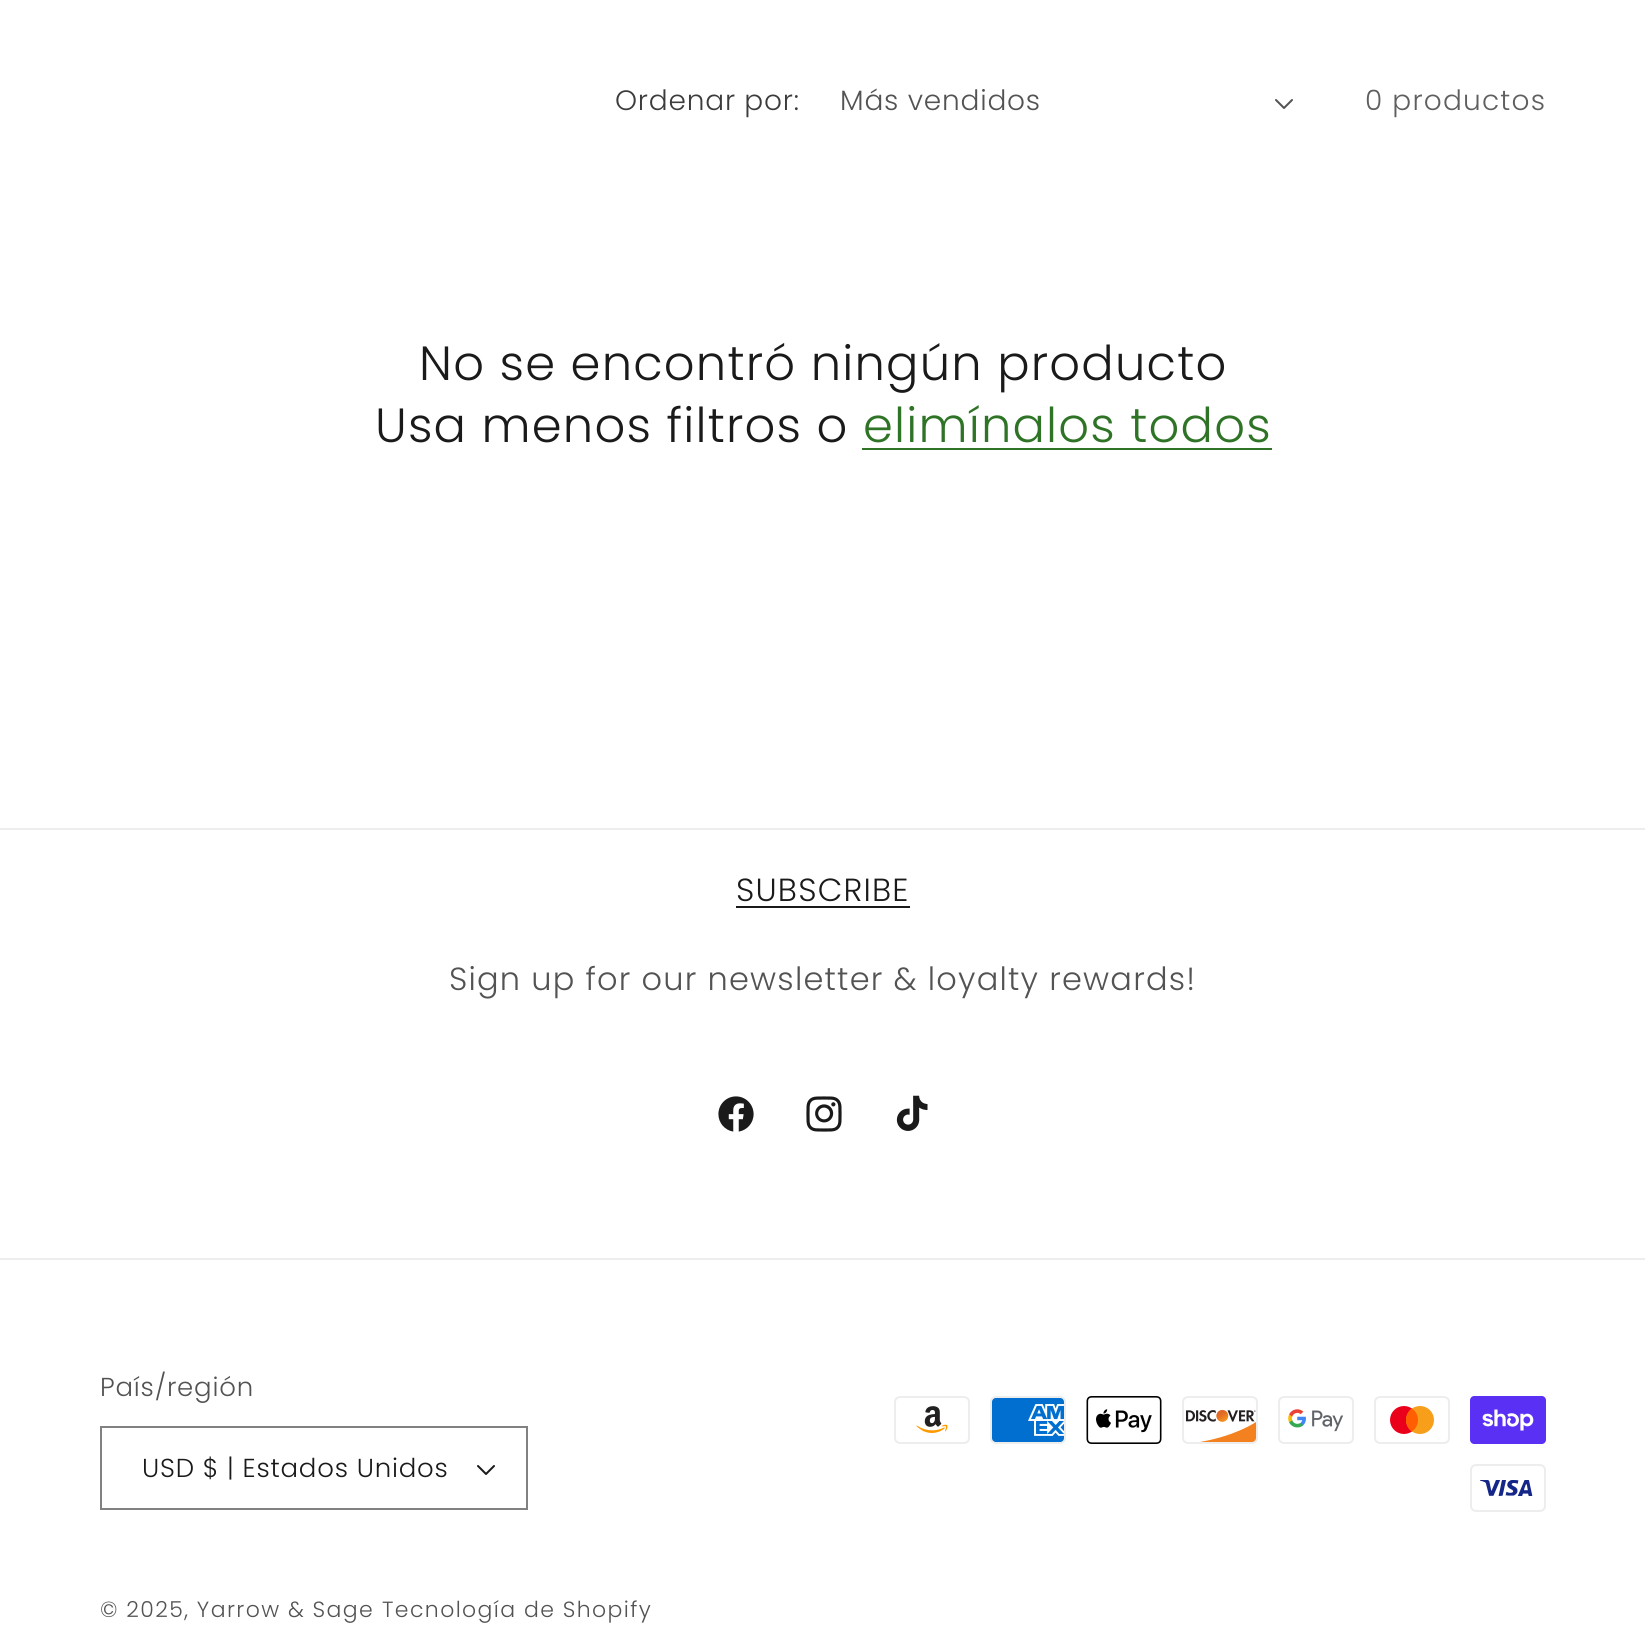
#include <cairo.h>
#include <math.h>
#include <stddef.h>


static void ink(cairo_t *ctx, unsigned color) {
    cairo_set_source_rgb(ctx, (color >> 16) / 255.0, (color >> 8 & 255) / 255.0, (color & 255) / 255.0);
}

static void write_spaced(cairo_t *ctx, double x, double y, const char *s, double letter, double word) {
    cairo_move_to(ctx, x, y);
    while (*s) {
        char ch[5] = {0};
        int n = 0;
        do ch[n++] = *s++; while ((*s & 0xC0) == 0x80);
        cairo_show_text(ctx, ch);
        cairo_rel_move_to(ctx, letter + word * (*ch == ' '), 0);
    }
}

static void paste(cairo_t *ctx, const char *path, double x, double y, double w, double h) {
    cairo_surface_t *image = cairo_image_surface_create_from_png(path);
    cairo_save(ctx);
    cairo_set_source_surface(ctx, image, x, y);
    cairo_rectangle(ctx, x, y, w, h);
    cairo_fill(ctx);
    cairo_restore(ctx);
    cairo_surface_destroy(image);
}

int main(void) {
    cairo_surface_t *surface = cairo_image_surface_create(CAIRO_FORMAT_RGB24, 1645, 1643);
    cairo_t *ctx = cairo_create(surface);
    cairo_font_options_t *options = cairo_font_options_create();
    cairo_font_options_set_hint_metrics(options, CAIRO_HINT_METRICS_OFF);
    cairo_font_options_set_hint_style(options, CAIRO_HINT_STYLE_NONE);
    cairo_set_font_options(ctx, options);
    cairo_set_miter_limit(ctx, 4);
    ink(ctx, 0xFFFFFF);
    cairo_paint(ctx);
    cairo_select_font_face(ctx, "Poppins Light", CAIRO_FONT_SLANT_NORMAL, CAIRO_FONT_WEIGHT_NORMAL);
    cairo_set_font_size(ctx, 28);
    ink(ctx, 0x3C3C3C);
    write_spaced(ctx, 615, 110, "Ordenar por:", 0.8, 0);
    ink(ctx, 0x535353);
    write_spaced(ctx, 840, 110, "Más vendidos", 0.8, 0);
    paste(ctx, "media/1.png", 1275, 99, 18, 10);
    ink(ctx, 0x5F5F5F);
    write_spaced(ctx, 1365, 110, "0 productos", 1.2, 0);
    cairo_set_font_size(ctx, 48);
    ink(ctx, 0x1A1A1A);
    write_spaced(ctx, 419, 380, "No se encontró ningún producto", 1.2, 0);
    write_spaced(ctx, 375, 442, "Usa menos filtros o", 1.2, 0);
    ink(ctx, 0x2E7326);
    write_spaced(ctx, 863, 442, "elimínalos todos", 1.2, 0);
    cairo_rectangle(ctx, 862, 448, 410, 2);
    cairo_fill(ctx);
    ink(ctx, 0xEDEDED);
    cairo_rectangle(ctx, 0, 828, 1645, 2);
    cairo_fill(ctx);
    cairo_set_font_size(ctx, 32);
    ink(ctx, 0x1A1A1A);
    write_spaced(ctx, 736, 901, "SUBSCRIBE", 1.2, 0);
    cairo_rectangle(ctx, 736, 906, 174, 2);
    cairo_fill(ctx);
    ink(ctx, 0x535353);
    write_spaced(ctx, 449, 990, "Sign up for our newsletter & loyalty rewards!", 1.2, 0);
    paste(ctx, "media/2.png", 718, 1096, 36, 36);
    paste(ctx, "media/3.png", 806, 1096, 36, 36);
    paste(ctx, "media/4.png", 896, 1095, 32, 36);
    ink(ctx, 0xEDEDED);
    cairo_rectangle(ctx, 0, 1258, 1645, 2);
    cairo_fill(ctx);
    cairo_set_font_size(ctx, 26);
    ink(ctx, 0x535353);
    write_spaced(ctx, 100, 1396, "País/región", 0.8, 0);
    paste(ctx, "media/5.png", 477, 1465, 18, 10);
    cairo_rectangle(ctx, 101, 1427, 426, 82);
    ink(ctx, 0x818181);
    cairo_stroke(ctx);
    ink(ctx, 0x1A1A1A);
    write_spaced(ctx, 142, 1477, "USD $ | Estados Unidos", 0.8, 0);
    paste(ctx, "media/6.png", 894, 1396, 76, 48);
    paste(ctx, "media/7.png", 990, 1396, 76, 48);
    paste(ctx, "media/8.png", 1086, 1396, 76, 48);
    paste(ctx, "media/9.png", 1182, 1396, 76, 48);
    paste(ctx, "media/10.png", 1278, 1396, 76, 48);
    paste(ctx, "media/11.png", 1374, 1396, 76, 48);
    paste(ctx, "media/12.png", 1470, 1396, 76, 48);
    paste(ctx, "media/13.png", 1470, 1464, 76, 48);
    cairo_set_font_size(ctx, 22);
    ink(ctx, 0x535353);
    write_spaced(ctx, 100, 1617, "© 2025, Yarrow & Sage", 1.4, 0);
    write_spaced(ctx, 382, 1617, "Tecnología de Shopify", 1.4, 0);
    cairo_surface_write_to_png(surface, "image.png");
    cairo_font_options_destroy(options);
    cairo_destroy(ctx);
    cairo_surface_destroy(surface);
    return 0;
}
